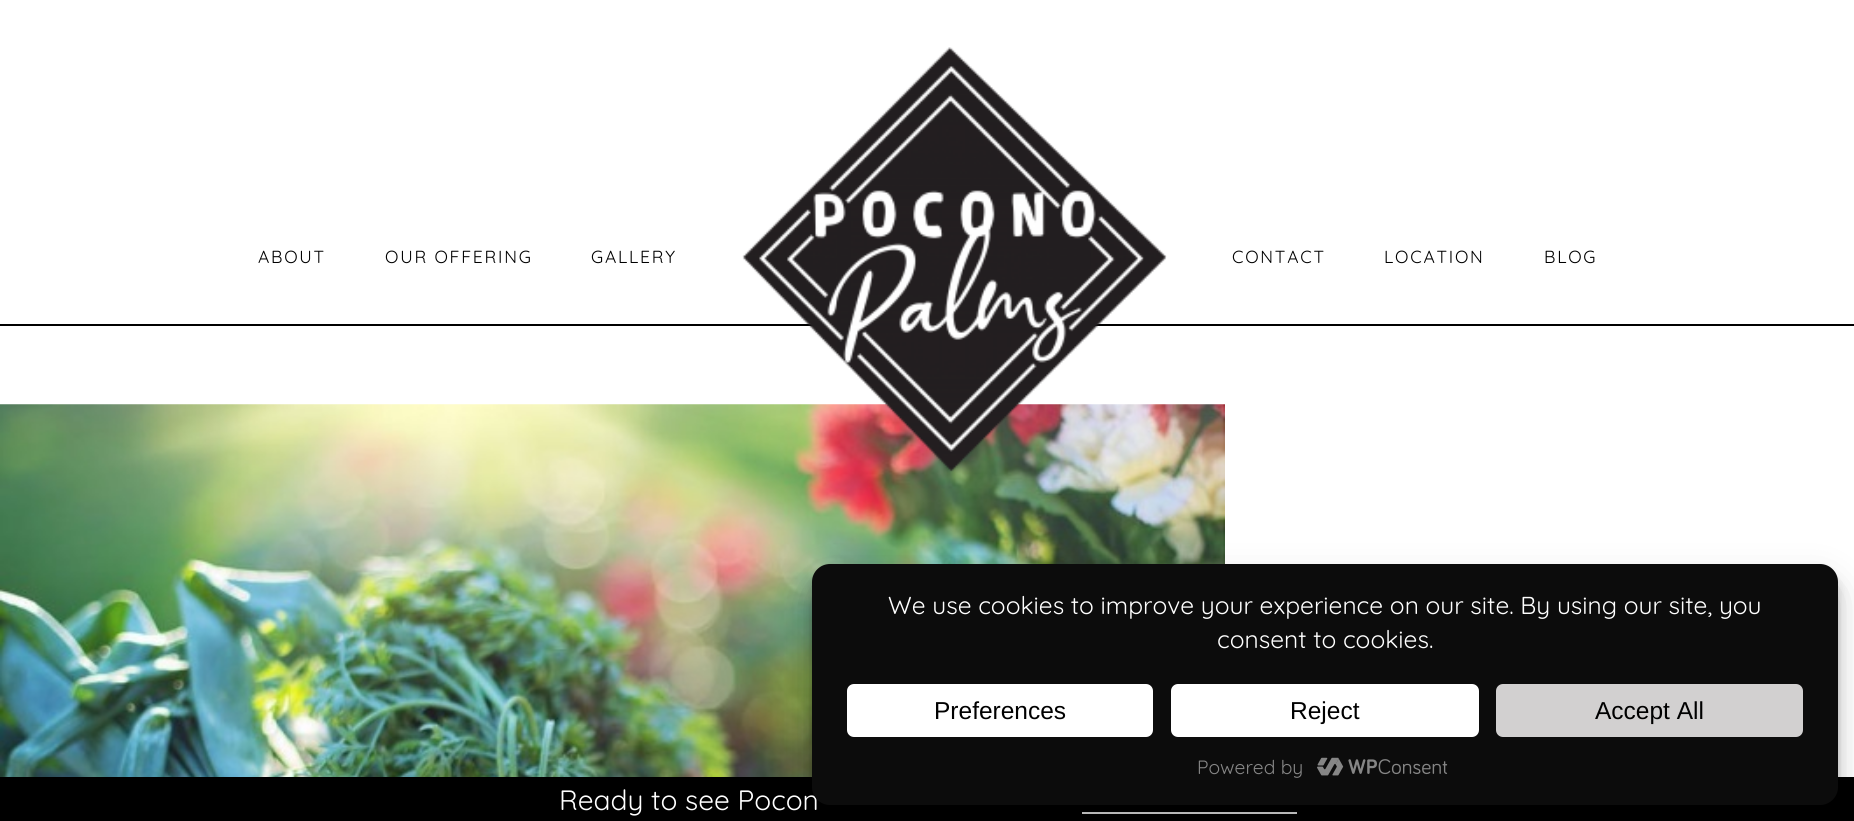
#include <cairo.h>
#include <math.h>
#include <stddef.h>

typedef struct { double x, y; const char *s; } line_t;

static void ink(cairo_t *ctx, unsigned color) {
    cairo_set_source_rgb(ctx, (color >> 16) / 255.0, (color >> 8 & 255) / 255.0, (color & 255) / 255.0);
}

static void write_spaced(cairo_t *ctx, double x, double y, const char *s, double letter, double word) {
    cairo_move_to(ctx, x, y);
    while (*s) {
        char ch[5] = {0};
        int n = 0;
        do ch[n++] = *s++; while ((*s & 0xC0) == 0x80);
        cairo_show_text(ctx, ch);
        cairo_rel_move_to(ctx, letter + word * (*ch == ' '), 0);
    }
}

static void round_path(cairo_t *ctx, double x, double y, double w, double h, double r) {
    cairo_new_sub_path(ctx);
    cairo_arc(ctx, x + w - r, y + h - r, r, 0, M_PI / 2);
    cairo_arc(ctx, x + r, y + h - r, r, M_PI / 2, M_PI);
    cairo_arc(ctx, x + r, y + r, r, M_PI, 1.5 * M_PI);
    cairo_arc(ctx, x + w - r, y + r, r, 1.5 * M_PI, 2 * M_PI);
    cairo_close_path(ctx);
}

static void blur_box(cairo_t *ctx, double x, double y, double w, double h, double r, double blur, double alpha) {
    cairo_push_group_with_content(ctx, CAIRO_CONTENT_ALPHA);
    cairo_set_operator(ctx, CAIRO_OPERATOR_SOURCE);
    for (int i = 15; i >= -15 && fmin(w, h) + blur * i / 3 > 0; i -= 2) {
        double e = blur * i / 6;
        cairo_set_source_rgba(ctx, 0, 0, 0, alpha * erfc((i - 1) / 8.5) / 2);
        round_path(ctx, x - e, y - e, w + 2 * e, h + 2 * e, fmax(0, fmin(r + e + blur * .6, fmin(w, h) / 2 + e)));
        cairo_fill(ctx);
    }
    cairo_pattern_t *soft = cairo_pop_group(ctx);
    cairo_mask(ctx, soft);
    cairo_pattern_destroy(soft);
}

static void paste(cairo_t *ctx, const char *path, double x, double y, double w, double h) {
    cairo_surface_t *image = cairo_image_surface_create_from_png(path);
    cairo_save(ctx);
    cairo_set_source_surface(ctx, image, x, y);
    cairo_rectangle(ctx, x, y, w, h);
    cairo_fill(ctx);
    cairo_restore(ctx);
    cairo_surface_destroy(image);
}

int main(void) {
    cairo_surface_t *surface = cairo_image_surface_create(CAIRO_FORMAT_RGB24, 1854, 821);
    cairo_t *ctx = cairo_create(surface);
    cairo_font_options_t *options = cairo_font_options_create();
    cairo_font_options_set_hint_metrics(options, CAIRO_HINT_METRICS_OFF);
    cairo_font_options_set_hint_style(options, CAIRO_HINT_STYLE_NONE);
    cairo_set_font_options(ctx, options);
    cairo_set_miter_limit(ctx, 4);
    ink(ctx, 0xFFFFFF);
    cairo_paint(ctx);
    ink(ctx, 0x000000);
    cairo_rectangle(ctx, 0, 324, 1854, 2);
    cairo_fill(ctx);
    cairo_select_font_face(ctx, "Quicksand Light", CAIRO_FONT_SLANT_NORMAL, CAIRO_FONT_WEIGHT_NORMAL);
    cairo_set_font_size(ctx, 17.5);
    {
        static const line_t items[] = {
            {258, 263, "ABOUT"},
            {385, 263, "OUR OFFERING"},
            {591, 263, "GALLERY"},
        };
        for (size_t i = 0; i < sizeof items / sizeof *items; i++) {
            write_spaced(ctx, items[i].x, items[i].y, items[i].s, 1.75, 0);
        }
    }
    paste(ctx, "media/2.png", 0, 404, 1225, 373);
    paste(ctx, "media/1.png", 742, 47, 425, 425);
    {
        static const line_t items[] = {
            {1232, 263, "CONTACT"},
            {1384, 263, "LOCATION"},
            {1544, 263, "BLOG"},
        };
        for (size_t i = 0; i < sizeof items / sizeof *items; i++) {
            write_spaced(ctx, items[i].x, items[i].y, items[i].s, 1.75, 0);
        }
    }
    cairo_rectangle(ctx, 0, 777, 1854, 44);
    cairo_fill(ctx);
    ink(ctx, 0xFFFFFF);
    cairo_rectangle(ctx, 1082, 812, 215, 2);
    cairo_fill(ctx);
    ink(ctx, 0x000000);
    blur_box(ctx, 812, 574, 1026, 242, 18, 5, 0.23);
    blur_box(ctx, 812, 581, 1026, 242, 18, 17.5, 0.19);
    cairo_set_font_size(ctx, 28);
    ink(ctx, 0xFFFFFF);
    cairo_move_to(ctx, 559, 810);
    cairo_show_text(ctx, "Ready to see Pocon");
    ink(ctx, 0x0C0C0C);
    round_path(ctx, 812, 564, 1026, 241, 18);
    cairo_fill(ctx);
    cairo_set_font_size(ctx, 24.5);
    ink(ctx, 0xFFFFFF);
    cairo_move_to(ctx, 888, 614);
    cairo_show_text(ctx, "We use cookies to improve your experience on our site. By using our site, you");
    cairo_move_to(ctx, 1217, 648);
    cairo_show_text(ctx, "consent to cookies.");
    round_path(ctx, 847, 684, 306, 53, 7);
    cairo_fill(ctx);
    cairo_select_font_face(ctx, "Liberation Sans", CAIRO_FONT_SLANT_NORMAL, CAIRO_FONT_WEIGHT_NORMAL);
    ink(ctx, 0x000000);
    cairo_move_to(ctx, 934, 719);
    cairo_show_text(ctx, "Preferences");
    ink(ctx, 0xFFFFFF);
    round_path(ctx, 1171, 684, 308, 53, 7);
    cairo_fill(ctx);
    ink(ctx, 0x000000);
    cairo_move_to(ctx, 1290, 719);
    cairo_show_text(ctx, "Reject");
    ink(ctx, 0xD2D0D0);
    round_path(ctx, 1496, 684, 307, 53, 7);
    cairo_fill(ctx);
    ink(ctx, 0x000000);
    cairo_move_to(ctx, 1595, 719);
    cairo_show_text(ctx, "Accept All");
    cairo_select_font_face(ctx, "Quicksand Light", CAIRO_FONT_SLANT_NORMAL, CAIRO_FONT_WEIGHT_NORMAL);
    cairo_set_font_size(ctx, 19.25);
    ink(ctx, 0x868686);
    cairo_move_to(ctx, 1197, 774);
    cairo_show_text(ctx, "Powered by");
    paste(ctx, "media/3.png", 1317, 757, 131, 19);
    cairo_surface_write_to_png(surface, "image.png");
    cairo_font_options_destroy(options);
    cairo_destroy(ctx);
    cairo_surface_destroy(surface);
    return 0;
}
